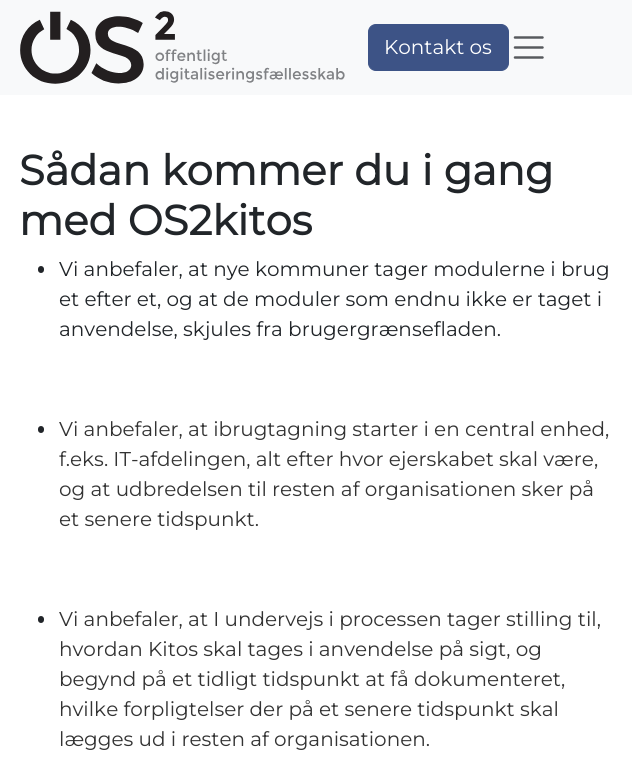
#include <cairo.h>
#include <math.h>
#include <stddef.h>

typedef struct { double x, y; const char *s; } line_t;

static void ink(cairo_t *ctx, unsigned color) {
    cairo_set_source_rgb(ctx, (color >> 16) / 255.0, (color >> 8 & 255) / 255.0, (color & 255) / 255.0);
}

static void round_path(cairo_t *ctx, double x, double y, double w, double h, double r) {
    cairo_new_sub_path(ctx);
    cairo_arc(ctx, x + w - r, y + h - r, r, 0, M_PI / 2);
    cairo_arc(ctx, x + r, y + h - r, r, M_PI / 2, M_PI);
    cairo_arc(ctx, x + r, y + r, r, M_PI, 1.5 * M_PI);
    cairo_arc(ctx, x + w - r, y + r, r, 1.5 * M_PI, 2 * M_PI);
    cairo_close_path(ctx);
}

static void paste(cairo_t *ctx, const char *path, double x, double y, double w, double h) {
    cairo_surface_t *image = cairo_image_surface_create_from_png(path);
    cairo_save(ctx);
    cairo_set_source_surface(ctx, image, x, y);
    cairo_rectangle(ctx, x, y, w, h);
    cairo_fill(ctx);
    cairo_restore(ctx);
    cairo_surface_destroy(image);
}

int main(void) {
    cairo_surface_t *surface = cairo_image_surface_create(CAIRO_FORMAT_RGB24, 632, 776);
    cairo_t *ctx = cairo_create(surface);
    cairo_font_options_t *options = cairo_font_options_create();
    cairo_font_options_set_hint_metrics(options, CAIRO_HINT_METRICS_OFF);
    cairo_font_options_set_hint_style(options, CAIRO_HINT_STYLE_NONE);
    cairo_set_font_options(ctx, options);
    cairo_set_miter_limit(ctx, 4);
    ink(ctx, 0xFFFFFF);
    cairo_paint(ctx);
    ink(ctx, 0xF8F9FA);
    cairo_rectangle(ctx, 0, 0, 632, 95);
    cairo_fill(ctx);
    paste(ctx, "media/1.png", 20, 11, 325, 73);
    ink(ctx, 0x3D5386);
    round_path(ctx, 368.5, 24.5, 140, 46, 7.5);
    cairo_fill_preserve(ctx);
    cairo_set_line_width(ctx, 1);
    cairo_stroke(ctx);
    cairo_select_font_face(ctx, "Montserrat Thin", CAIRO_FONT_SLANT_NORMAL, CAIRO_FONT_WEIGHT_NORMAL);
    cairo_set_font_size(ctx, 20);
    ink(ctx, 0xFFFFFF);
    cairo_move_to(ctx, 384, 54);
    cairo_show_text(ctx, "Kontakt os");
    cairo_new_path(ctx);
    cairo_move_to(ctx, 515, 37.5);
    cairo_line_to(ctx, 542.5, 37.5);
    cairo_move_to(ctx, 515, 47.5);
    cairo_line_to(ctx, 542.5, 47.5);
    cairo_move_to(ctx, 515, 57.5);
    cairo_line_to(ctx, 542.5, 57.5);
    ink(ctx, 0x575A5D);
    cairo_set_line_width(ctx, 2.5);
    cairo_set_line_cap(ctx, CAIRO_LINE_CAP_ROUND);
    cairo_stroke(ctx);
    cairo_select_font_face(ctx, "Montserrat", CAIRO_FONT_SLANT_NORMAL, CAIRO_FONT_WEIGHT_BOLD);
    cairo_set_font_size(ctx, 41.75);
    ink(ctx, 0x212529);
    cairo_move_to(ctx, 19, 185);
    cairo_show_text(ctx, "Sådan kommer du i gang");
    cairo_move_to(ctx, 19, 235);
    cairo_show_text(ctx, "med OS2kitos");
    round_path(ctx, 38, 266, 6, 7, 3);
    cairo_fill(ctx);
    cairo_select_font_face(ctx, "Montserrat Thin", CAIRO_FONT_SLANT_NORMAL, CAIRO_FONT_WEIGHT_NORMAL);
    cairo_set_font_size(ctx, 20);
    {
        static const line_t items[] = {
            {59, 276, "Vi anbefaler, at nye kommuner tager modulerne i brug"},
            {59, 306, "et efter et, og at de moduler som endnu ikke er taget i"},
            {59, 336, "anvendelse, skjules fra brugergrænsefladen."},
        };
        for (size_t i = 0; i < sizeof items / sizeof *items; i++) {
            cairo_move_to(ctx, items[i].x, items[i].y);
            cairo_show_text(ctx, items[i].s);
        }
    }
    round_path(ctx, 38, 426, 6, 7, 3);
    cairo_fill(ctx);
    ink(ctx, 0x333333);
    {
        static const line_t items[] = {
            {59, 436, "Vi anbefaler, at ibrugtagning starter i en central enhed,"},
            {59, 466, "f.eks. IT-afdelingen, alt efter hvor ejerskabet skal være,"},
            {59, 496, "og at udbredelsen til resten af organisationen sker på"},
            {59, 526, "et senere tidspunkt."},
        };
        for (size_t i = 0; i < sizeof items / sizeof *items; i++) {
            cairo_move_to(ctx, items[i].x, items[i].y);
            cairo_show_text(ctx, items[i].s);
        }
    }
    ink(ctx, 0x212529);
    round_path(ctx, 38, 616, 6, 7, 3);
    cairo_fill(ctx);
    ink(ctx, 0x333333);
    {
        static const line_t items[] = {
            {59, 626, "Vi anbefaler, at I undervejs i processen tager stilling til,"},
            {59, 656, "hvordan Kitos skal tages i anvendelse på sigt, og"},
            {59, 686, "begynd på et tidligt tidspunkt at få dokumenteret,"},
            {59, 716, "hvilke forpligtelser der på et senere tidspunkt skal"},
            {59, 746, "lægges ud i resten af organisationen."},
        };
        for (size_t i = 0; i < sizeof items / sizeof *items; i++) {
            cairo_move_to(ctx, items[i].x, items[i].y);
            cairo_show_text(ctx, items[i].s);
        }
    }
    cairo_surface_write_to_png(surface, "image.png");
    cairo_font_options_destroy(options);
    cairo_destroy(ctx);
    cairo_surface_destroy(surface);
    return 0;
}
